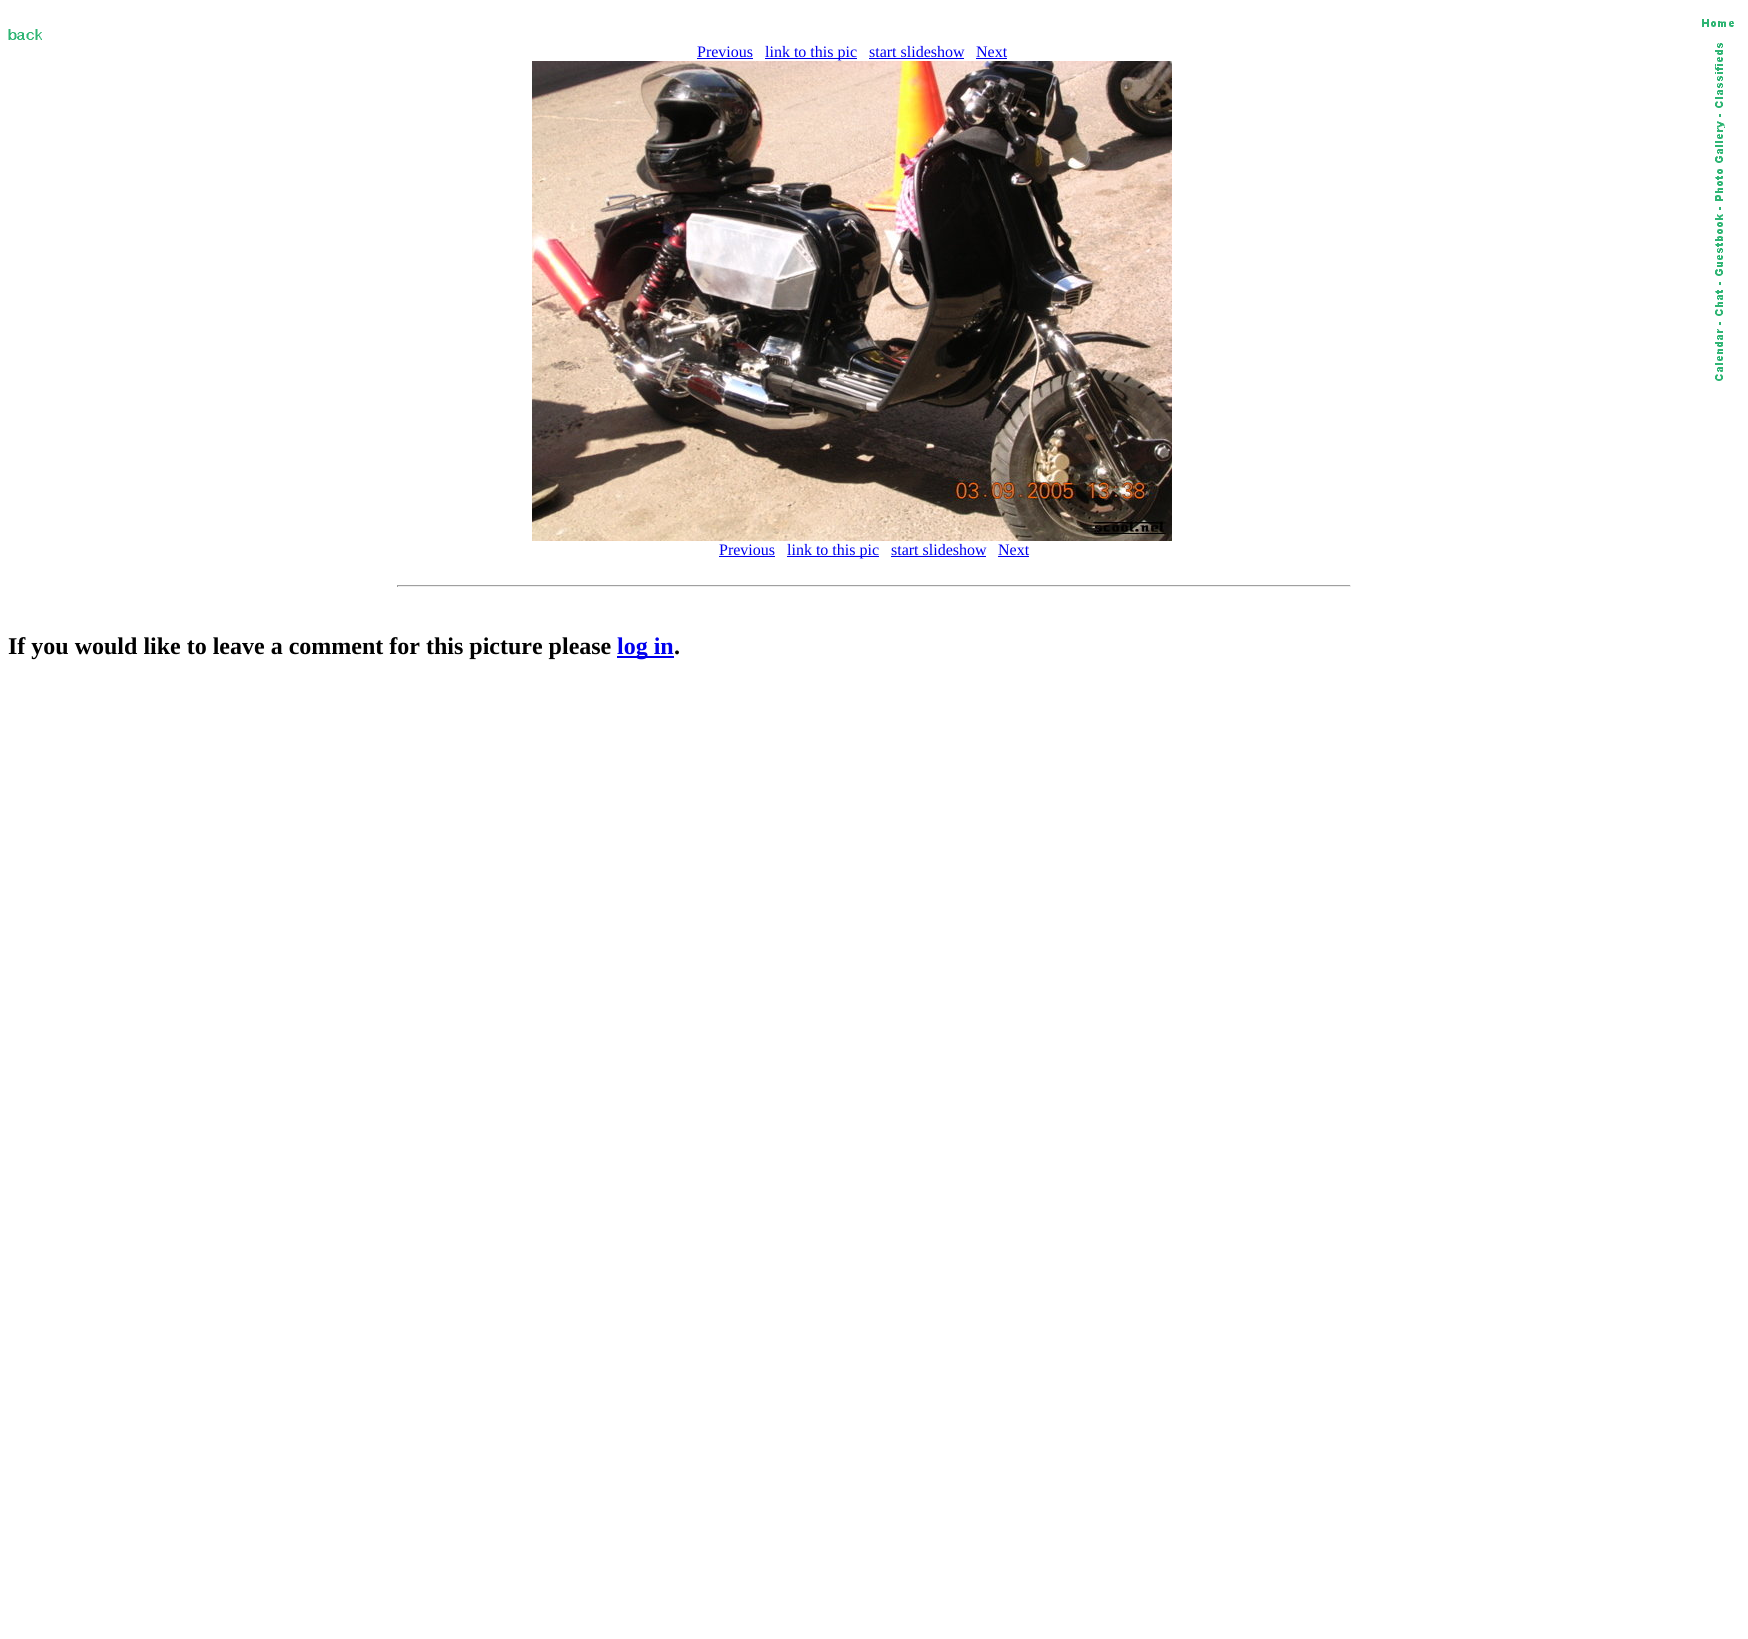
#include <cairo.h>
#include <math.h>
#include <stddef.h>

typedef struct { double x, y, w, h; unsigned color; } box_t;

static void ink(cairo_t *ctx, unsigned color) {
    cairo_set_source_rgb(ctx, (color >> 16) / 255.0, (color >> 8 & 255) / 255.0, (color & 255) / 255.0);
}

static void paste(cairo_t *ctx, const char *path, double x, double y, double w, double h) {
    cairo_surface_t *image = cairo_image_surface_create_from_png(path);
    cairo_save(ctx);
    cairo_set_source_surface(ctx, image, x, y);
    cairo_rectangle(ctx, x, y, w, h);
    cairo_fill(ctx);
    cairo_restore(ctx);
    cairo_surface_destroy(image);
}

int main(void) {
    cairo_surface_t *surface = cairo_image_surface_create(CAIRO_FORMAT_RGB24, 1748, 1639);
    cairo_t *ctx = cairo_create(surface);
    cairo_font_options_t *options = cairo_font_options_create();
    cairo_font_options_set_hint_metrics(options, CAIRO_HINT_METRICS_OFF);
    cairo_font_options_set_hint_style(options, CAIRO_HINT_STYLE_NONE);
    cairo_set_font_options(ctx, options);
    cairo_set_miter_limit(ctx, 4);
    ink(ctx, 0xFFFFFF);
    cairo_paint(ctx);
    paste(ctx, "media/1.png", 8, 29, 34, 11);
    paste(ctx, "media/2.png", 1702, 19, 32, 8);
    paste(ctx, "media/3.png", 1715, 43, 10, 338);
    cairo_select_font_face(ctx, "Liberation Serif", CAIRO_FONT_SLANT_NORMAL, CAIRO_FONT_WEIGHT_NORMAL);
    cairo_set_font_size(ctx, 16);
    ink(ctx, 0x0000EE);
    cairo_move_to(ctx, 697, 57);
    cairo_show_text(ctx, "Previous");
    cairo_rectangle(ctx, 697, 58, 56, 1);
    cairo_fill(ctx);
    cairo_rectangle(ctx, 765, 58, 92, 1);
    cairo_fill(ctx);
    cairo_move_to(ctx, 765, 57);
    cairo_show_text(ctx, "link to this pic");
    cairo_move_to(ctx, 869, 57);
    cairo_show_text(ctx, "start slideshow");
    cairo_rectangle(ctx, 869, 58, 95, 1);
    cairo_fill(ctx);
    cairo_move_to(ctx, 976, 57);
    cairo_show_text(ctx, "Next");
    cairo_rectangle(ctx, 976, 58, 31, 1);
    cairo_fill(ctx);
    paste(ctx, "media/4.png", 532, 61, 640, 480);
    cairo_move_to(ctx, 719, 555);
    cairo_show_text(ctx, "Previous");
    cairo_rectangle(ctx, 719, 556, 56, 1);
    cairo_fill(ctx);
    cairo_rectangle(ctx, 787, 556, 92, 1);
    cairo_fill(ctx);
    cairo_move_to(ctx, 787, 555);
    cairo_show_text(ctx, "link to this pic");
    cairo_move_to(ctx, 891, 555);
    cairo_show_text(ctx, "start slideshow");
    cairo_rectangle(ctx, 891, 556, 95, 1);
    cairo_fill(ctx);
    cairo_move_to(ctx, 998, 555);
    cairo_show_text(ctx, "Next");
    {
        static const box_t items[] = {
            {998, 556, 31, 1, 0x0000EE},
            {397, 585, 954, 1, 0x9F9F9F},
            {1350, 585, 1, 2, 0xEEEEEE},
            {397, 586, 954, 1, 0xEEEEEE},
            {397, 585, 1, 2, 0x9F9F9F},
        };
        for (size_t i = 0; i < sizeof items / sizeof *items; i++) {
            ink(ctx, items[i].color);
            cairo_rectangle(ctx, items[i].x, items[i].y, items[i].w, items[i].h);
            cairo_fill(ctx);
        }
    }
    cairo_select_font_face(ctx, "Liberation Serif", CAIRO_FONT_SLANT_NORMAL, CAIRO_FONT_WEIGHT_BOLD);
    cairo_set_font_size(ctx, 24);
    ink(ctx, 0x000000);
    cairo_move_to(ctx, 8, 654);
    cairo_show_text(ctx, "If you would like to leave a comment for this picture please");
    ink(ctx, 0x0000EE);
    cairo_rectangle(ctx, 617, 656, 57, 2);
    cairo_fill(ctx);
    cairo_move_to(ctx, 617, 654);
    cairo_show_text(ctx, "log in");
    ink(ctx, 0x000000);
    cairo_move_to(ctx, 674, 654);
    cairo_show_text(ctx, ".");
    cairo_surface_write_to_png(surface, "image.png");
    cairo_font_options_destroy(options);
    cairo_destroy(ctx);
    cairo_surface_destroy(surface);
    return 0;
}
